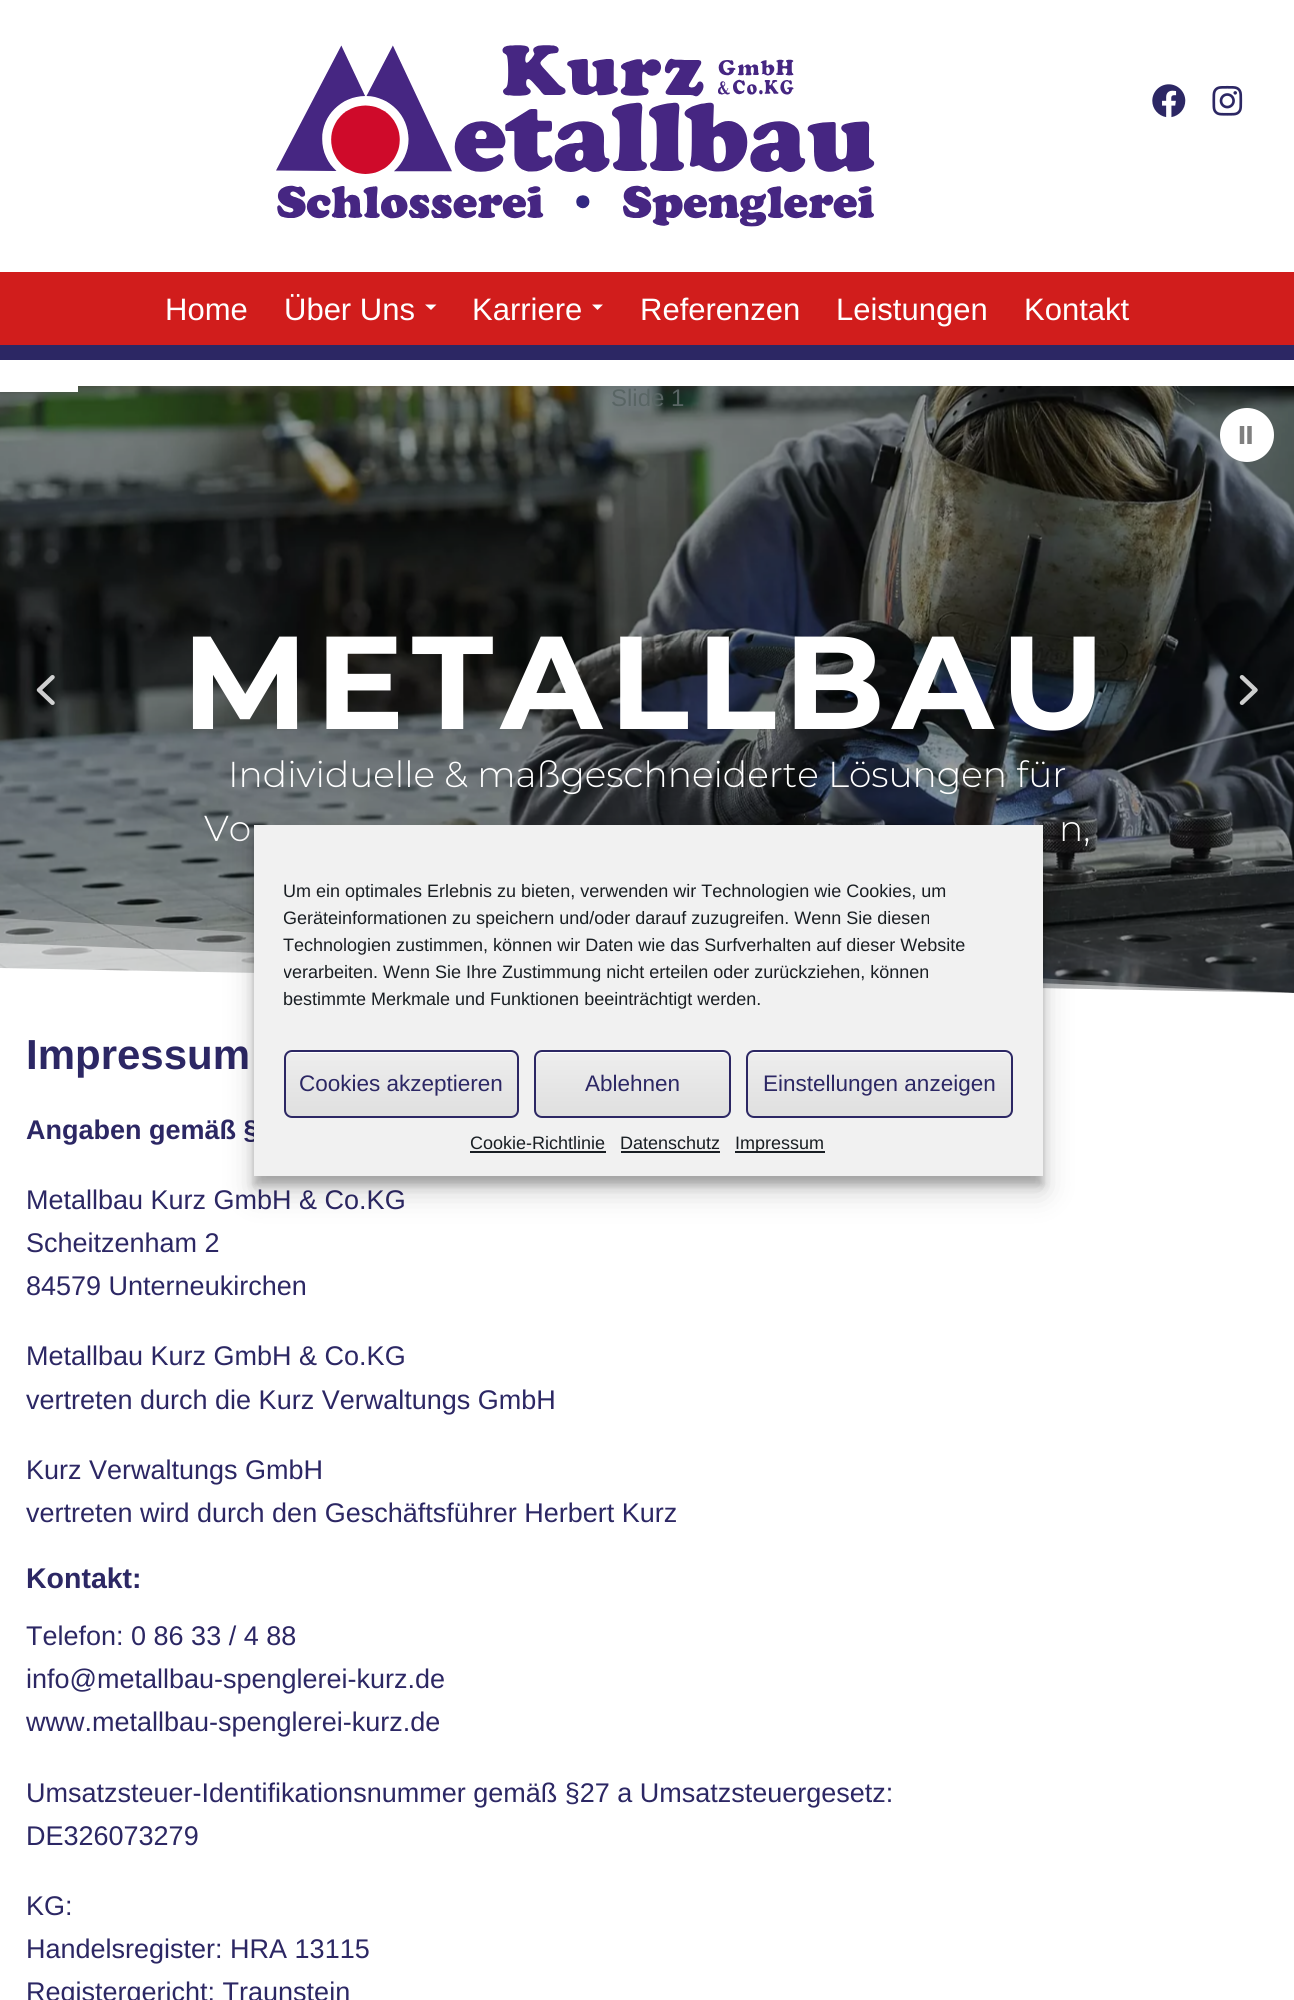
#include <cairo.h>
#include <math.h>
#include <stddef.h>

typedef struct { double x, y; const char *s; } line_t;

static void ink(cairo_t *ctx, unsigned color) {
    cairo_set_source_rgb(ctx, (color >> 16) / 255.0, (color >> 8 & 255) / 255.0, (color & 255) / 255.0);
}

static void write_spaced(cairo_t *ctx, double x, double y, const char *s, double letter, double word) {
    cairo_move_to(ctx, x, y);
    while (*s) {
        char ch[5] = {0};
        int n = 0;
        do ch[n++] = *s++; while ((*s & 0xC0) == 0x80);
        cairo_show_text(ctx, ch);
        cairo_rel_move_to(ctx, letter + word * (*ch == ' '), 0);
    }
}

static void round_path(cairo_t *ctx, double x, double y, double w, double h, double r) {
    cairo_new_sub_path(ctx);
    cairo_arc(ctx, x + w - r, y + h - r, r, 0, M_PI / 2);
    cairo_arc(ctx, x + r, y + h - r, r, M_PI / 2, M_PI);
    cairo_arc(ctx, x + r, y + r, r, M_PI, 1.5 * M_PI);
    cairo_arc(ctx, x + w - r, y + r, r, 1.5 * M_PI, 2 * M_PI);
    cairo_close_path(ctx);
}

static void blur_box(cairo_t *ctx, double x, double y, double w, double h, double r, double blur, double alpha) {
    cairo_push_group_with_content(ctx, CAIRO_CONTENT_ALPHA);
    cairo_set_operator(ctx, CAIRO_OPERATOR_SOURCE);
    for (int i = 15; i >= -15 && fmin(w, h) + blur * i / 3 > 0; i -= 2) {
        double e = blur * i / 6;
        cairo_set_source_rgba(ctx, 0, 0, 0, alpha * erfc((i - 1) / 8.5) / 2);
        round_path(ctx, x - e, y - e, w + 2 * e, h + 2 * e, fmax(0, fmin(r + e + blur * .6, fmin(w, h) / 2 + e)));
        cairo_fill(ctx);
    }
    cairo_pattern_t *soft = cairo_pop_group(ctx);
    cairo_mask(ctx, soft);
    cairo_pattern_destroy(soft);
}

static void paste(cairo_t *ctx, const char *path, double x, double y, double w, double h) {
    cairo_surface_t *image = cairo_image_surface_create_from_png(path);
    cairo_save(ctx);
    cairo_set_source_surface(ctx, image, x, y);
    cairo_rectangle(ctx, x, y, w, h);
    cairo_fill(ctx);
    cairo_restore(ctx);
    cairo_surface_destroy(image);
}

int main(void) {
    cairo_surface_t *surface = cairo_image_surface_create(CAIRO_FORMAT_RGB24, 1294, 2000);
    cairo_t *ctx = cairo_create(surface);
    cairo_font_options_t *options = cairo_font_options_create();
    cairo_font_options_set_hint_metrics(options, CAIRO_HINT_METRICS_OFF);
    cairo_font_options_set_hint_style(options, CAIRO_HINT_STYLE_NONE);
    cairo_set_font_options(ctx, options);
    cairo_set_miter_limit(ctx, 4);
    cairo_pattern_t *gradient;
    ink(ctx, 0xFFFFFF);
    cairo_paint(ctx);
    paste(ctx, "media/1.png", 276, 45, 599, 182);
    paste(ctx, "media/2.png", 1152, 84, 34, 34);
    paste(ctx, "media/3.png", 1212, 85, 31, 31);
    ink(ctx, 0xD11D1C);
    cairo_rectangle(ctx, 0, 272, 1294, 73);
    cairo_fill(ctx);
    ink(ctx, 0x2C2764);
    cairo_rectangle(ctx, 0, 345, 1294, 15);
    cairo_fill(ctx);
    cairo_select_font_face(ctx, "Liberation Sans", CAIRO_FONT_SLANT_NORMAL, CAIRO_FONT_WEIGHT_NORMAL);
    cairo_set_font_size(ctx, 31);
    ink(ctx, 0xFFFFFF);
    cairo_move_to(ctx, 165, 320);
    cairo_show_text(ctx, "Home");
    cairo_move_to(ctx, 284, 320);
    cairo_show_text(ctx, "Über Uns");
    cairo_new_path(ctx);
    cairo_move_to(ctx, 425, 304.5);
    cairo_line_to(ctx, 431, 310);
    cairo_line_to(ctx, 436.5, 304.5);
    cairo_close_path(ctx);
    cairo_fill(ctx);
    cairo_move_to(ctx, 472, 320);
    cairo_show_text(ctx, "Karriere");
    cairo_new_path(ctx);
    cairo_move_to(ctx, 592, 304.5);
    cairo_line_to(ctx, 597.5, 310);
    cairo_line_to(ctx, 603, 304.5);
    cairo_close_path(ctx);
    cairo_fill(ctx);
    {
        static const line_t items[] = {
            {640, 320, "Referenzen"},
            {836, 320, "Leistungen"},
            {1024, 320, "Kontakt"},
        };
        for (size_t i = 0; i < sizeof items / sizeof *items; i++) {
            cairo_move_to(ctx, items[i].x, items[i].y);
            cairo_show_text(ctx, items[i].s);
        }
    }
    ink(ctx, 0x000000);
    cairo_rectangle(ctx, 0, 386, 1294, 607);
    cairo_fill(ctx);
    paste(ctx, "media/4.png", 0, 386, 1294, 607);
    ink(ctx, 0xFFFFFF);
    cairo_rectangle(ctx, 0, 386, 78, 6);
    cairo_fill(ctx);
    cairo_set_font_size(ctx, 24);
    ink(ctx, 0x596564);
    cairo_move_to(ctx, 611, 406);
    cairo_show_text(ctx, "Slide 1");
    cairo_select_font_face(ctx, "Montserrat", CAIRO_FONT_SLANT_NORMAL, CAIRO_FONT_WEIGHT_BOLD);
    cairo_set_font_size(ctx, 132);
    ink(ctx, 0xFFFFFF);
    write_spaced(ctx, 182, 729, "METALLBAU", 7.5, 0);
    cairo_select_font_face(ctx, "Montserrat Light", CAIRO_FONT_SLANT_NORMAL, CAIRO_FONT_WEIGHT_NORMAL);
    cairo_set_font_size(ctx, 36);
    {
        static const line_t items[] = {
            {228, 787, "Individuelle & maßgeschneiderte Lösungen für"},
            {204, 841, "Vo"},
            {1059, 841, "n,"},
        };
        for (size_t i = 0; i < sizeof items / sizeof *items; i++) {
            cairo_move_to(ctx, items[i].x, items[i].y);
            cairo_show_text(ctx, items[i].s);
        }
    }
    cairo_set_source_rgba(ctx, 1, 1, 1, 0.25);
    cairo_new_path(ctx);
    cairo_move_to(ctx, 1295, 993);
    cairo_line_to(ctx, -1, 918);
    cairo_line_to(ctx, -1, 993);
    cairo_close_path(ctx);
    cairo_fill(ctx);
    cairo_set_source_rgba(ctx, 1, 1, 1, 0.5);
    cairo_new_path(ctx);
    cairo_move_to(ctx, 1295, 993);
    cairo_line_to(ctx, -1, 943);
    cairo_line_to(ctx, -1, 993);
    cairo_close_path(ctx);
    cairo_fill(ctx);
    cairo_save(ctx);
    cairo_rectangle(ctx, 0, 918, 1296, 75);
    cairo_clip(ctx);
    ink(ctx, 0xFFFFFF);
    cairo_new_path(ctx);
    cairo_move_to(ctx, 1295, 994);
    cairo_line_to(ctx, 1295, 993);
    cairo_line_to(ctx, -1, 968);
    cairo_line_to(ctx, -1, 994);
    cairo_close_path(ctx);
    cairo_fill(ctx);
    cairo_restore(ctx);
    ink(ctx, 0xFFFFFF);
    cairo_arc(ctx, 1247, 435, 27, 0, 2 * M_PI);
    cairo_fill(ctx);
    paste(ctx, "media/5.png", 1239, 426, 13, 18);
    paste(ctx, "media/6.png", 36, 675, 19, 30);
    paste(ctx, "media/7.png", 1239, 675, 19, 30);
    cairo_select_font_face(ctx, "Liberation Sans", CAIRO_FONT_SLANT_NORMAL, CAIRO_FONT_WEIGHT_BOLD);
    cairo_set_font_size(ctx, 42);
    ink(ctx, 0x2C2764);
    cairo_move_to(ctx, 26, 1069);
    cairo_show_text(ctx, "Impressum");
    cairo_set_font_size(ctx, 27);
    cairo_move_to(ctx, 26, 1139);
    cairo_show_text(ctx, "Angaben gemäß §");
    cairo_select_font_face(ctx, "Liberation Sans", CAIRO_FONT_SLANT_NORMAL, CAIRO_FONT_WEIGHT_NORMAL);
    {
        static const line_t items[] = {
            {26, 1209, "Metallbau Kurz GmbH & Co.KG"},
            {26, 1252, "Scheitzenham 2"},
            {26, 1295, "84579 Unterneukirchen"},
            {26, 1365, "Metallbau Kurz GmbH & Co.KG"},
            {26, 1409, "vertreten durch die Kurz Verwaltungs GmbH"},
            {26, 1479, "Kurz Verwaltungs GmbH"},
            {26, 1522, "vertreten wird durch den Geschäftsführer Herbert Kurz"},
        };
        for (size_t i = 0; i < sizeof items / sizeof *items; i++) {
            cairo_move_to(ctx, items[i].x, items[i].y);
            cairo_show_text(ctx, items[i].s);
        }
    }
    cairo_select_font_face(ctx, "Liberation Sans", CAIRO_FONT_SLANT_NORMAL, CAIRO_FONT_WEIGHT_BOLD);
    cairo_set_font_size(ctx, 28.5);
    cairo_move_to(ctx, 26, 1588);
    cairo_show_text(ctx, "Kontakt:");
    cairo_select_font_face(ctx, "Liberation Sans", CAIRO_FONT_SLANT_NORMAL, CAIRO_FONT_WEIGHT_NORMAL);
    cairo_set_font_size(ctx, 27);
    {
        static const line_t items[] = {
            {26, 1645, "Telefon: 0 86 33 / 4 88"},
            {26, 1688, "info@metallbau-spenglerei-kurz.de"},
            {26, 1731, "www.metallbau-spenglerei-kurz.de"},
            {26, 1802, "Umsatzsteuer-Identifikationsnummer gemäß §27 a Umsatzsteuergesetz:"},
            {26, 1845, "DE326073279"},
            {26, 1915, "KG:"},
            {26, 1958, "Handelsregister: HRA 13115"},
            {26, 2001, "Registergericht: Traunstein"},
        };
        for (size_t i = 0; i < sizeof items / sizeof *items; i++) {
            cairo_move_to(ctx, items[i].x, items[i].y);
            cairo_show_text(ctx, items[i].s);
        }
    }
    ink(ctx, 0x000000);
    blur_box(ctx, 254, 834, 789, 351, 0, 4.5, 0.23);
    blur_box(ctx, 254, 840, 789, 351, 0, 15, 0.19);
    ink(ctx, 0xF1F1F1);
    cairo_rectangle(ctx, 254, 825, 789, 351);
    cairo_fill(ctx);
    cairo_set_font_size(ctx, 18);
    ink(ctx, 0x191E23);
    cairo_move_to(ctx, 283, 897);
    cairo_show_text(ctx, "Um ein optimales Erlebnis zu bieten, verwenden wir Technologien wie Cookies, um");
    cairo_save(ctx);
    cairo_rectangle(ctx, 284, 878, 729, 142);
    cairo_clip(ctx);
    cairo_move_to(ctx, 283, 924);
    cairo_show_text(ctx, "Geräteinformationen zu speichern und/oder darauf zuzugreifen. Wenn Sie diesen");
    cairo_restore(ctx);
    cairo_move_to(ctx, 283, 951);
    cairo_show_text(ctx, "Technologien zustimmen, können wir Daten wie das Surfverhalten auf dieser Website");
    cairo_save(ctx);
    cairo_rectangle(ctx, 284, 878, 729, 142);
    cairo_clip(ctx);
    cairo_move_to(ctx, 283, 978);
    cairo_show_text(ctx, "verarbeiten. Wenn Sie Ihre Zustimmung nicht erteilen oder zurückziehen, können");
    cairo_restore(ctx);
    cairo_move_to(ctx, 283, 1005);
    cairo_show_text(ctx, "bestimmte Merkmale und Funktionen beeinträchtigt werden.");
    cairo_save(ctx);
    round_path(ctx, 284, 1050, 235, 68, 8);
    cairo_clip(ctx);
    gradient = cairo_pattern_create_linear(285, 1052, 285, 1116);
    cairo_pattern_add_color_stop_rgba(gradient, 0.05, 0.929, 0.929, 0.929, 1);
    cairo_pattern_add_color_stop_rgba(gradient, 1, 0.875, 0.875, 0.875, 1);
    cairo_set_source(ctx, gradient);
    cairo_pattern_destroy(gradient);
    cairo_rectangle(ctx, 284, 1052, 235, 64);
    cairo_fill(ctx);
    cairo_restore(ctx);
    ink(ctx, 0xFFFFFF);
    cairo_new_path(ctx);
    cairo_move_to(ctx, 291, 1053);
    cairo_line_to(ctx, 512, 1053);
    cairo_curve_to(ctx, 515, 1053, 518, 1056, 518, 1059);
    cairo_line_to(ctx, 518, 1058);
    cairo_curve_to(ctx, 518, 1055, 515, 1052, 512, 1052);
    cairo_line_to(ctx, 291, 1052);
    cairo_curve_to(ctx, 288, 1052, 285, 1055, 285, 1058);
    cairo_line_to(ctx, 285, 1059);
    cairo_curve_to(ctx, 285, 1056, 288, 1053, 291, 1053);
    cairo_close_path(ctx);
    cairo_fill(ctx);
    round_path(ctx, 285, 1051, 233, 66, 7);
    ink(ctx, 0x2C2764);
    cairo_stroke(ctx);
    cairo_set_font_size(ctx, 22.5);
    cairo_move_to(ctx, 299, 1091);
    cairo_show_text(ctx, "Cookies akzeptieren");
    cairo_save(ctx);
    round_path(ctx, 534, 1050, 197, 68, 8);
    cairo_clip(ctx);
    gradient = cairo_pattern_create_linear(536, 1052, 536, 1116);
    cairo_pattern_add_color_stop_rgba(gradient, 0.05, 0.929, 0.929, 0.929, 1);
    cairo_pattern_add_color_stop_rgba(gradient, 1, 0.875, 0.875, 0.875, 1);
    cairo_set_source(ctx, gradient);
    cairo_pattern_destroy(gradient);
    cairo_rectangle(ctx, 534, 1052, 197, 64);
    cairo_fill(ctx);
    cairo_restore(ctx);
    ink(ctx, 0xFFFFFF);
    cairo_new_path(ctx);
    cairo_move_to(ctx, 542, 1053);
    cairo_line_to(ctx, 723, 1053);
    cairo_curve_to(ctx, 726, 1053, 729, 1056, 729, 1059);
    cairo_line_to(ctx, 729, 1058);
    cairo_curve_to(ctx, 729, 1055, 726, 1052, 723, 1052);
    cairo_line_to(ctx, 542, 1052);
    cairo_curve_to(ctx, 539, 1052, 536, 1055, 536, 1058);
    cairo_line_to(ctx, 536, 1059);
    cairo_curve_to(ctx, 536, 1056, 538, 1053, 542, 1053);
    cairo_close_path(ctx);
    cairo_fill(ctx);
    round_path(ctx, 535, 1051, 195, 66, 7);
    ink(ctx, 0x2C2764);
    cairo_stroke(ctx);
    cairo_move_to(ctx, 585, 1091);
    cairo_show_text(ctx, "Ablehnen");
    cairo_save(ctx);
    round_path(ctx, 746, 1050, 267, 68, 8);
    cairo_clip(ctx);
    gradient = cairo_pattern_create_linear(747, 1052, 747, 1116);
    cairo_pattern_add_color_stop_rgba(gradient, 0.05, 0.929, 0.929, 0.929, 1);
    cairo_pattern_add_color_stop_rgba(gradient, 1, 0.875, 0.875, 0.875, 1);
    cairo_set_source(ctx, gradient);
    cairo_pattern_destroy(gradient);
    cairo_rectangle(ctx, 746, 1052, 267, 64);
    cairo_fill(ctx);
    cairo_restore(ctx);
    ink(ctx, 0xFFFFFF);
    cairo_new_path(ctx);
    cairo_move_to(ctx, 753, 1053);
    cairo_line_to(ctx, 1005, 1053);
    cairo_curve_to(ctx, 1008, 1053, 1011, 1056, 1011, 1059);
    cairo_line_to(ctx, 1011, 1058);
    cairo_curve_to(ctx, 1011, 1055, 1008, 1052, 1005, 1052);
    cairo_line_to(ctx, 753, 1052);
    cairo_curve_to(ctx, 750, 1052, 747, 1055, 747, 1058);
    cairo_line_to(ctx, 747, 1059);
    cairo_curve_to(ctx, 747, 1056, 750, 1053, 753, 1053);
    cairo_close_path(ctx);
    cairo_fill(ctx);
    round_path(ctx, 747, 1051, 265, 66, 7);
    ink(ctx, 0x2C2764);
    cairo_stroke(ctx);
    cairo_move_to(ctx, 763, 1091);
    cairo_show_text(ctx, "Einstellungen anzeigen");
    cairo_set_font_size(ctx, 18);
    ink(ctx, 0x191E23);
    cairo_move_to(ctx, 470, 1149);
    cairo_show_text(ctx, "Cookie-Richtlinie");
    cairo_rectangle(ctx, 470, 1151, 136, 2);
    cairo_fill(ctx);
    cairo_move_to(ctx, 620, 1149);
    cairo_show_text(ctx, "Datenschutz");
    cairo_rectangle(ctx, 621, 1151, 99, 2);
    cairo_fill(ctx);
    cairo_rectangle(ctx, 735, 1151, 90, 2);
    cairo_fill(ctx);
    cairo_move_to(ctx, 735, 1149);
    cairo_show_text(ctx, "Impressum");
    cairo_surface_write_to_png(surface, "image.png");
    cairo_font_options_destroy(options);
    cairo_destroy(ctx);
    cairo_surface_destroy(surface);
    return 0;
}
